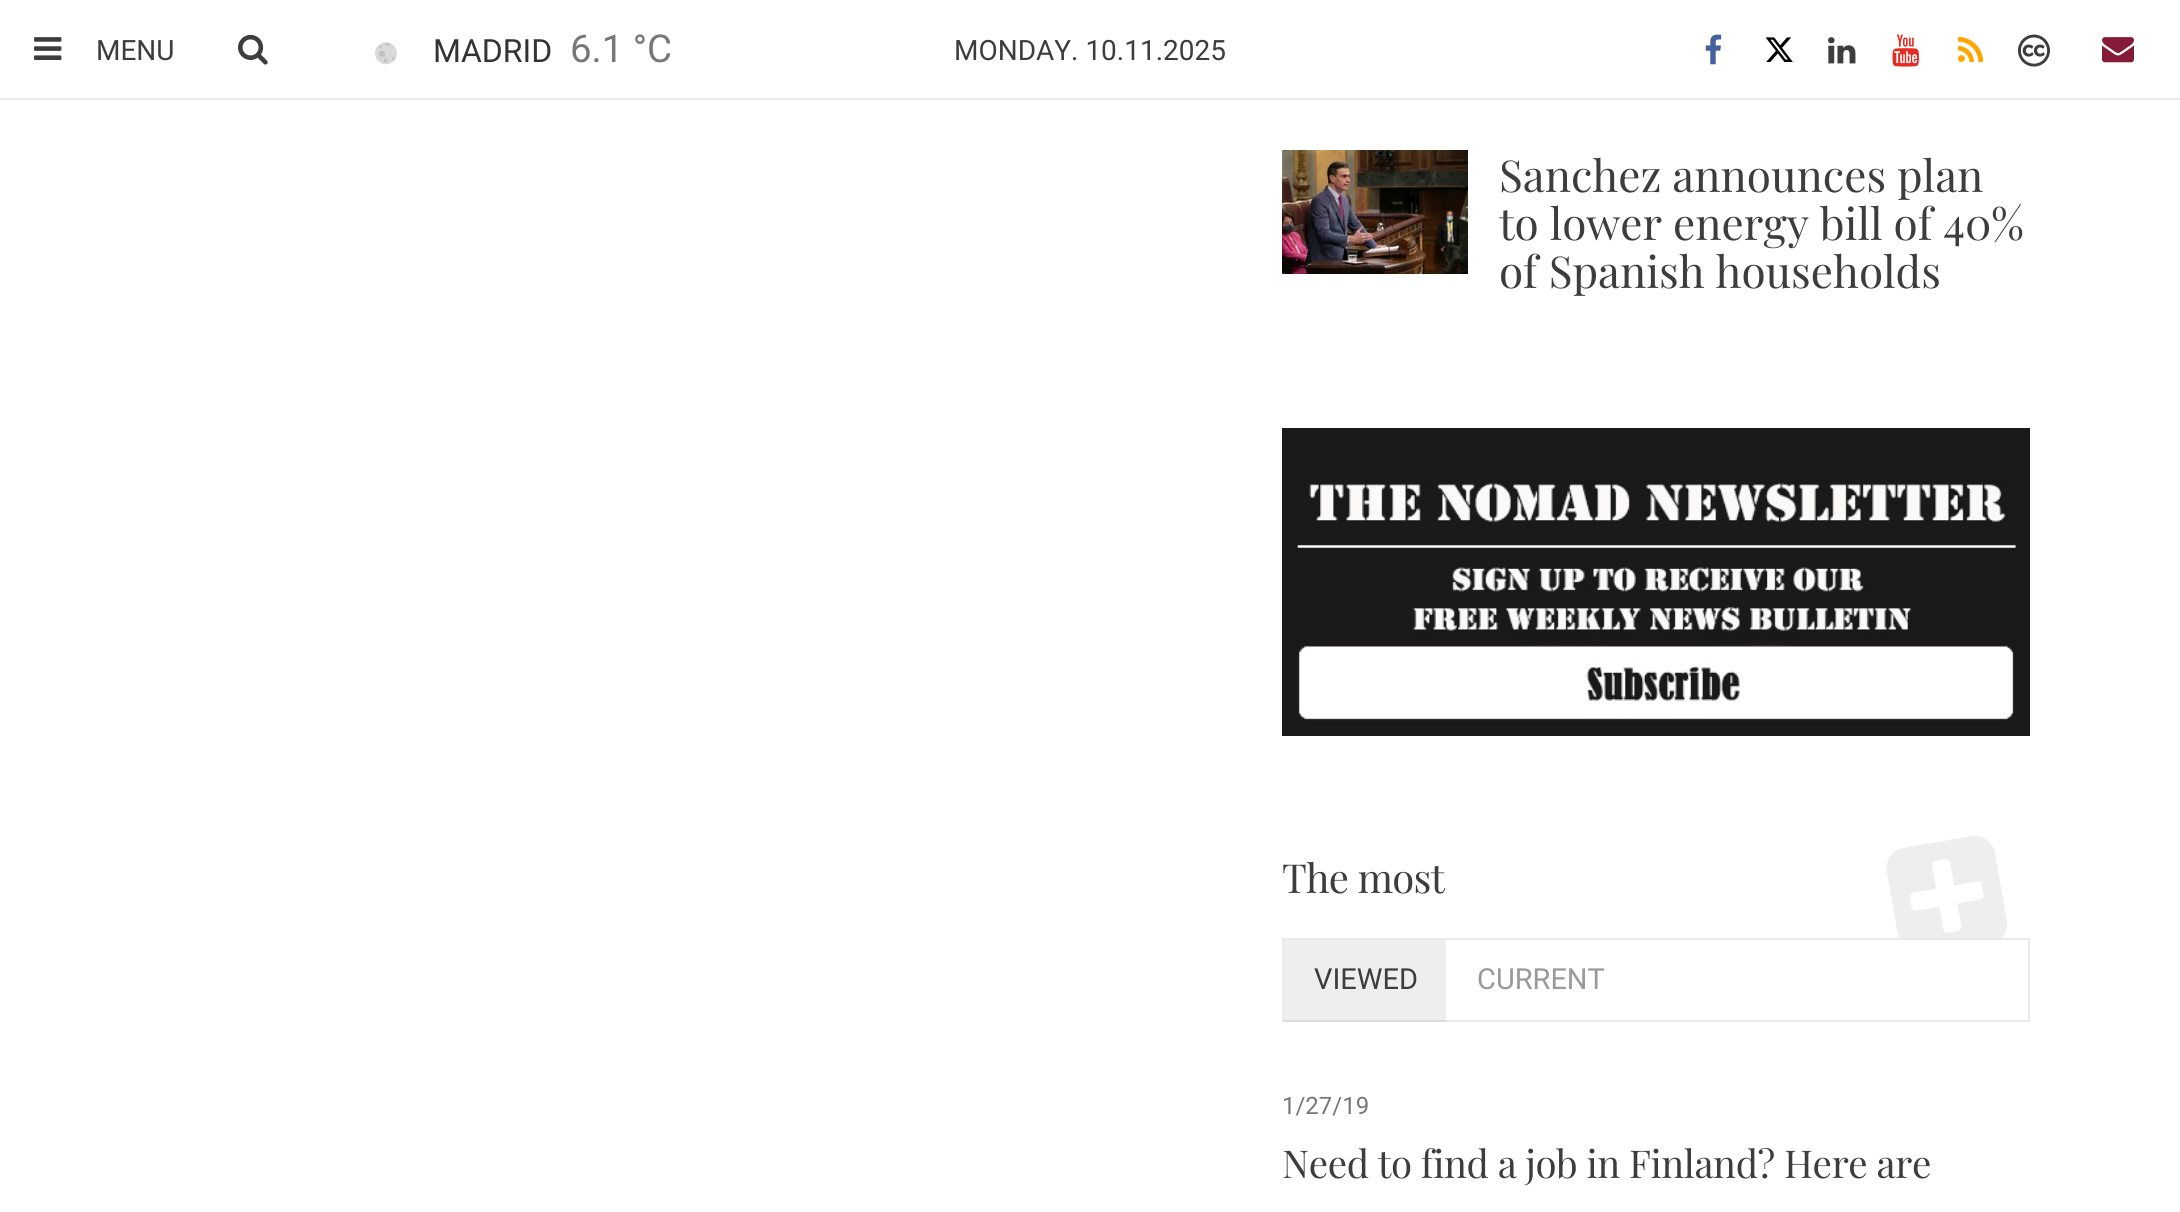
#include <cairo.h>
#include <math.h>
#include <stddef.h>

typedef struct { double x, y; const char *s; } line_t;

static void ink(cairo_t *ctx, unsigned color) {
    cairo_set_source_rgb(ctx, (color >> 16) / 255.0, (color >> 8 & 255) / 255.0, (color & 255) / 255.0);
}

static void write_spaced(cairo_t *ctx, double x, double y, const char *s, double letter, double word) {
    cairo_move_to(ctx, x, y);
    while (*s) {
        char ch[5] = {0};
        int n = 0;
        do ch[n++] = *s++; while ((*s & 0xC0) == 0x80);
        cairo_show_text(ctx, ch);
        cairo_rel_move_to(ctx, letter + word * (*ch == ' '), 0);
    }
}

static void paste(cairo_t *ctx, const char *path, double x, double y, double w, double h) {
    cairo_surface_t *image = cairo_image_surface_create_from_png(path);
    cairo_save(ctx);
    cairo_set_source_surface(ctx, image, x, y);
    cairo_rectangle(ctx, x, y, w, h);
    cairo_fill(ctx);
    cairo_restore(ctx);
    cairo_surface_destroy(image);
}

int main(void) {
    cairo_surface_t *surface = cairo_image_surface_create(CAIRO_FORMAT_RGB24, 2180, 1212);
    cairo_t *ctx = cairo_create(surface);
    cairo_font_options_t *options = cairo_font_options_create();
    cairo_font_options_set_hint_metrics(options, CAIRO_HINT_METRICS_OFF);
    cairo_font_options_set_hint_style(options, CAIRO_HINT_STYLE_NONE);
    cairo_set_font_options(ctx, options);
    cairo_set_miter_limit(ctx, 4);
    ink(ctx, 0xFFFFFF);
    cairo_paint(ctx);
    ink(ctx, 0xE8E8E8);
    cairo_rectangle(ctx, 0, 98, 2180, 2);
    cairo_fill(ctx);
    paste(ctx, "media/1.png", 34, 37, 28, 23);
    cairo_select_font_face(ctx, "Roboto", CAIRO_FONT_SLANT_NORMAL, CAIRO_FONT_WEIGHT_NORMAL);
    cairo_set_font_size(ctx, 28);
    ink(ctx, 0x3D3D3D);
    cairo_move_to(ctx, 96, 60);
    cairo_show_text(ctx, "MENU");
    paste(ctx, "media/2.png", 238, 34, 30, 31);
    paste(ctx, "media/3.png", 375, 42, 22, 23);
    cairo_set_font_size(ctx, 32);
    ink(ctx, 0x333333);
    cairo_move_to(ctx, 433, 62);
    cairo_show_text(ctx, "MADRID");
    cairo_set_font_size(ctx, 38.4);
    ink(ctx, 0x777777);
    cairo_move_to(ctx, 570, 62);
    cairo_show_text(ctx, "6.1 °C");
    cairo_set_font_size(ctx, 28);
    ink(ctx, 0x3D3D3D);
    cairo_move_to(ctx, 954, 60);
    cairo_show_text(ctx, "MONDAY. 10.11.2025");
    paste(ctx, "media/4.png", 1705, 34, 17, 31);
    paste(ctx, "media/5.png", 1765, 37, 28, 25);
    paste(ctx, "media/6.png", 1828, 37, 28, 27);
    paste(ctx, "media/7.png", 1892, 34, 27, 33);
    paste(ctx, "media/8.png", 1958, 36, 26, 26);
    paste(ctx, "media/9.png", 2018, 34, 32, 33);
    paste(ctx, "media/10.png", 2102, 37, 32, 26);
    paste(ctx, "media/11.png", 1282, 150, 186, 124);
    cairo_select_font_face(ctx, "Playfair Display", CAIRO_FONT_SLANT_NORMAL, CAIRO_FONT_WEIGHT_NORMAL);
    cairo_set_font_size(ctx, 44);
    {
        static const line_t items[] = {
            {1499, 192, "Sanchez announces plan"},
            {1499, 240, "to lower energy bill of 40%"},
            {1499, 288, "of Spanish households"},
        };
        for (size_t i = 0; i < sizeof items / sizeof *items; i++) {
            cairo_move_to(ctx, items[i].x, items[i].y);
            cairo_show_text(ctx, items[i].s);
        }
    }
    paste(ctx, "media/12.png", 1282, 428, 748, 308);
    cairo_set_font_size(ctx, 40);
    write_spaced(ctx, 1282, 893, "The most", -0.75, 0);
    paste(ctx, "media/13.png", 1886, 835, 121, 103);
    cairo_rectangle(ctx, 1283, 939, 746, 82);
    ink(ctx, 0xEAEAEA);
    cairo_stroke(ctx);
    cairo_set_source_rgba(ctx, 0, 0, 0, 0.07);
    cairo_rectangle(ctx, 1284, 940, 162, 82);
    cairo_fill(ctx);
    cairo_select_font_face(ctx, "Roboto", CAIRO_FONT_SLANT_NORMAL, CAIRO_FONT_WEIGHT_NORMAL);
    cairo_set_font_size(ctx, 29);
    ink(ctx, 0x3D3D3D);
    cairo_move_to(ctx, 1314, 989);
    cairo_show_text(ctx, "VIEWED");
    ink(ctx, 0x999999);
    cairo_move_to(ctx, 1477, 989);
    cairo_show_text(ctx, "CURRENT");
    cairo_set_font_size(ctx, 24);
    ink(ctx, 0x777777);
    cairo_move_to(ctx, 1282, 1114);
    cairo_show_text(ctx, "1/27/19");
    cairo_select_font_face(ctx, "Playfair Display", CAIRO_FONT_SLANT_NORMAL, CAIRO_FONT_WEIGHT_NORMAL);
    cairo_set_font_size(ctx, 38.4);
    ink(ctx, 0x3D3D3D);
    write_spaced(ctx, 1282, 1178, "Need to find a job in Finland? Here are", -0.4, 0);
    cairo_surface_write_to_png(surface, "image.png");
    cairo_font_options_destroy(options);
    cairo_destroy(ctx);
    cairo_surface_destroy(surface);
    return 0;
}
